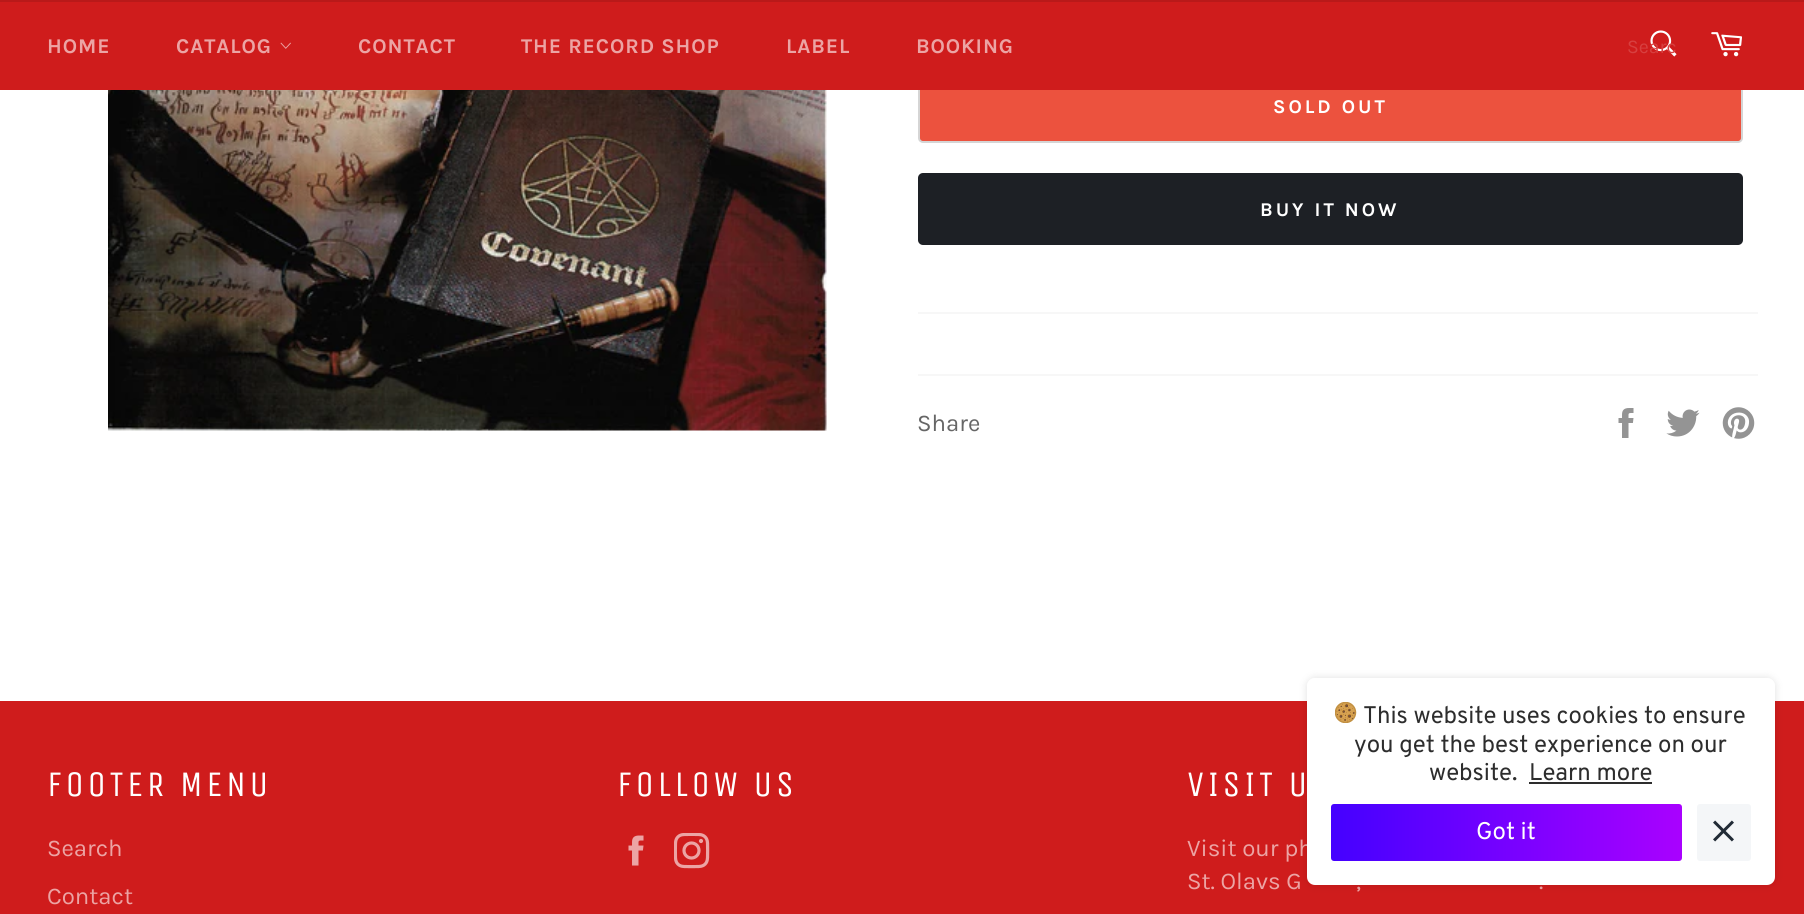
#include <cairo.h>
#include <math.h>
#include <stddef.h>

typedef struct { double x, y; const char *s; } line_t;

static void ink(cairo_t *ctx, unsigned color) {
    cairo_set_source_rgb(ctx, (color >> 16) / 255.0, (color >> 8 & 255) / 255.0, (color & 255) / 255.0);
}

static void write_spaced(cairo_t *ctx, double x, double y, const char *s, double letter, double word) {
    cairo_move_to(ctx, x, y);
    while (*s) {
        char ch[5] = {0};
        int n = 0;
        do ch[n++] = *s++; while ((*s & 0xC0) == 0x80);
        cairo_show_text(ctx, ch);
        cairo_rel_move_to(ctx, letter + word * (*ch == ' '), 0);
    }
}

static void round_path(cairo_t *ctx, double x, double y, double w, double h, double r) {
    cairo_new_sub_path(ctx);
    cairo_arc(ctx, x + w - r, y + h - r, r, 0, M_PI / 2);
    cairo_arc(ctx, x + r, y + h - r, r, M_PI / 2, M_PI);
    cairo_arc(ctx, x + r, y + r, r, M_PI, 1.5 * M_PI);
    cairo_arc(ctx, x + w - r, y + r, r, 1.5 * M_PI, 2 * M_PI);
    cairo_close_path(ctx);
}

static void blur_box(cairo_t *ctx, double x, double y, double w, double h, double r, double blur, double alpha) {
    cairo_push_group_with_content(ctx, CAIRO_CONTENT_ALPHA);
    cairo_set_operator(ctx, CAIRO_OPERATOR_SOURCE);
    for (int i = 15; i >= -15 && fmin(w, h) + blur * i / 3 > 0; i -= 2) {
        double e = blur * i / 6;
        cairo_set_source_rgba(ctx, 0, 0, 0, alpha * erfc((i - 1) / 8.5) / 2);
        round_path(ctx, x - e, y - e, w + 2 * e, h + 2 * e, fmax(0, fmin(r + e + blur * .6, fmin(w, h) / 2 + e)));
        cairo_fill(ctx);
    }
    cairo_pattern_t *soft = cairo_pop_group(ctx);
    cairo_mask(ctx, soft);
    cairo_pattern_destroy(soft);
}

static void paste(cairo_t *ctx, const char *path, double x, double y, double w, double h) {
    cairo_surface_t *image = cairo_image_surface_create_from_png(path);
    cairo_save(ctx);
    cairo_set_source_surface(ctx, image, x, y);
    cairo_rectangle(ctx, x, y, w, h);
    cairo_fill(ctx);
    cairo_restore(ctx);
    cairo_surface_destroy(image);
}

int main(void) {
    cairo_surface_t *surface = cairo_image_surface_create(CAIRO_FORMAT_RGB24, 1804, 914);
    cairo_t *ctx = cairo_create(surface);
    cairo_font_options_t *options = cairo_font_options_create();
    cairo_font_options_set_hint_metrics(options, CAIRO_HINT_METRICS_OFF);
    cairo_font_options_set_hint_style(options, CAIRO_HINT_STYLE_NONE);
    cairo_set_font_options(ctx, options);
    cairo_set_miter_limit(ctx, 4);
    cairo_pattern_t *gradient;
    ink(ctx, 0xFFFFFF);
    cairo_paint(ctx);
    ink(ctx, 0xEC523E);
    round_path(ctx, 919, 72, 823, 70, 4);
    cairo_fill_preserve(ctx);
    ink(ctx, 0xD5D5D5);
    cairo_stroke(ctx);
    ink(ctx, 0xCF1C1C);
    cairo_rectangle(ctx, 0, 2, 1804, 88);
    cairo_fill(ctx);
    ink(ctx, 0xB91919);
    cairo_rectangle(ctx, 0, 0, 1804, 2);
    cairo_fill(ctx);
    cairo_select_font_face(ctx, "Karla", CAIRO_FONT_SLANT_NORMAL, CAIRO_FONT_WEIGHT_BOLD);
    cairo_set_font_size(ctx, 21);
    ink(ctx, 0xECA4A4);
    write_spaced(ctx, 47, 53, "HOME", 0.9, 0);
    write_spaced(ctx, 176, 53, "CATALOG", 0.9, 0);
    paste(ctx, "media/1.png", 280, 42, 11, 7);
    {
        static const line_t items[] = {
            {358, 53, "CONTACT"},
            {521, 53, "THE RECORD SHOP"},
            {786, 53, "LABEL"},
            {916, 53, "BOOKING"},
        };
        for (size_t i = 0; i < sizeof items / sizeof *items; i++) {
            write_spaced(ctx, items[i].x, items[i].y, items[i].s, 0.9, 0);
        }
    }
    paste(ctx, "media/2.png", 1650, 30, 27, 27);
    cairo_select_font_face(ctx, "Karla", CAIRO_FONT_SLANT_NORMAL, CAIRO_FONT_WEIGHT_NORMAL);
    cairo_set_font_size(ctx, 19.5);
    ink(ctx, 0xD74040);
    cairo_move_to(ctx, 1627, 53);
    cairo_show_text(ctx, "Searc");
    paste(ctx, "media/3.png", 1711, 32, 31, 25);
    paste(ctx, "media/4.png", 108, 90, 719, 341);
    cairo_select_font_face(ctx, "Karla", CAIRO_FONT_SLANT_NORMAL, CAIRO_FONT_WEIGHT_BOLD);
    ink(ctx, 0xFFFFFF);
    write_spaced(ctx, 1273, 113, "SOLD OUT", 3, 0);
    ink(ctx, 0x1D2025);
    round_path(ctx, 918, 173, 825, 72, 5);
    cairo_fill(ctx);
    ink(ctx, 0xFFFFFF);
    write_spaced(ctx, 1260, 216, "BUY IT NOW", 3, 0);
    ink(ctx, 0xF7F7F7);
    cairo_rectangle(ctx, 918, 312, 840, 2);
    cairo_fill(ctx);
    cairo_rectangle(ctx, 918, 374, 840, 2);
    cairo_fill(ctx);
    cairo_select_font_face(ctx, "Karla", CAIRO_FONT_SLANT_NORMAL, CAIRO_FONT_WEIGHT_NORMAL);
    cairo_set_font_size(ctx, 24);
    ink(ctx, 0x666666);
    cairo_move_to(ctx, 917, 431);
    cairo_show_text(ctx, "Share");
    paste(ctx, "media/5.png", 1618, 408, 16, 30);
    paste(ctx, "media/6.png", 1666, 409, 34, 28);
    paste(ctx, "media/7.png", 1722, 407, 33, 32);
    ink(ctx, 0xCF1C1C);
    cairo_rectangle(ctx, 0, 701, 1804, 213);
    cairo_fill(ctx);
    cairo_select_font_face(ctx, "Unica One", CAIRO_FONT_SLANT_NORMAL, CAIRO_FONT_WEIGHT_NORMAL);
    cairo_set_font_size(ctx, 36);
    ink(ctx, 0xFFFFFF);
    write_spaced(ctx, 47, 796, "FOOTER MENU", 3.6, 0);
    cairo_select_font_face(ctx, "Karla", CAIRO_FONT_SLANT_NORMAL, CAIRO_FONT_WEIGHT_NORMAL);
    cairo_set_font_size(ctx, 24);
    ink(ctx, 0xECA4A4);
    cairo_move_to(ctx, 47, 856);
    cairo_show_text(ctx, "Search");
    cairo_move_to(ctx, 47, 904);
    cairo_show_text(ctx, "Contact");
    cairo_select_font_face(ctx, "Unica One", CAIRO_FONT_SLANT_NORMAL, CAIRO_FONT_WEIGHT_NORMAL);
    cairo_set_font_size(ctx, 36);
    ink(ctx, 0xFFFFFF);
    write_spaced(ctx, 617, 796, "FOLLOW US", 3.6, 0);
    paste(ctx, "media/8.png", 628, 835, 16, 31);
    paste(ctx, "media/9.png", 674, 833, 36, 36);
    write_spaced(ctx, 1187, 796, "VISIT U", 3.6, 0);
    cairo_select_font_face(ctx, "Karla", CAIRO_FONT_SLANT_NORMAL, CAIRO_FONT_WEIGHT_NORMAL);
    cairo_set_font_size(ctx, 24);
    ink(ctx, 0xECA4A4);
    {
        static const line_t items[] = {
            {1187, 856, "Visit our ph"},
            {1187, 889, "St. Olavs G"},
            {1356, 889, ","},
            {1539, 889, "."},
        };
        for (size_t i = 0; i < sizeof items / sizeof *items; i++) {
            cairo_move_to(ctx, items[i].x, items[i].y);
            cairo_show_text(ctx, items[i].s);
        }
    }
    ink(ctx, 0xFFFFFF);
    round_path(ctx, 1307, 678, 468, 207, 8);
    cairo_fill(ctx);
    cairo_save(ctx);
    cairo_set_fill_rule(ctx, CAIRO_FILL_RULE_EVEN_ODD);
    cairo_new_path(ctx);
    cairo_move_to(ctx, 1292, 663);
    cairo_line_to(ctx, 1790, 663);
    cairo_line_to(ctx, 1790, 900);
    cairo_line_to(ctx, 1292, 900);
    cairo_close_path(ctx);
    cairo_move_to(ctx, 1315, 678);
    cairo_line_to(ctx, 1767, 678);
    cairo_curve_to(ctx, 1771.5, 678, 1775, 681.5, 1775, 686);
    cairo_line_to(ctx, 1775, 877);
    cairo_curve_to(ctx, 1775, 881.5, 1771.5, 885, 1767, 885);
    cairo_line_to(ctx, 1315, 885);
    cairo_curve_to(ctx, 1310.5, 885, 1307, 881.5, 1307, 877);
    cairo_line_to(ctx, 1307, 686);
    cairo_curve_to(ctx, 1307, 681.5, 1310.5, 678, 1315, 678);
    cairo_close_path(ctx);
    cairo_clip(ctx);
    ink(ctx, 0x000000);
    blur_box(ctx, 1307, 678, 468, 207, 8, 4.5, 0.12);
    cairo_restore(ctx);
    paste(ctx, "media/10.png", 1335, 702, 22, 21);
    cairo_select_font_face(ctx, "Overpass", CAIRO_FONT_SLANT_NORMAL, CAIRO_FONT_WEIGHT_NORMAL);
    ink(ctx, 0x2D2D2D);
    {
        static const line_t items[] = {
            {1363, 723, "This website uses cookies to ensure"},
            {1354, 752, "you get the best experience on our"},
            {1429, 780, "website."},
            {1529, 780, "Learn more"},
        };
        for (size_t i = 0; i < sizeof items / sizeof *items; i++) {
            cairo_move_to(ctx, items[i].x, items[i].y);
            cairo_show_text(ctx, items[i].s);
        }
    }
    cairo_rectangle(ctx, 1529, 782, 123, 2);
    cairo_fill(ctx);
    gradient = cairo_pattern_create_linear(1331, 833, 1682, 833);
    cairo_pattern_add_color_stop_rgba(gradient, 0, 0.267, 0.004, 1, 1);
    cairo_pattern_add_color_stop_rgba(gradient, 1, 0.663, 0.004, 1, 1);
    cairo_set_source(ctx, gradient);
    cairo_pattern_destroy(gradient);
    round_path(ctx, 1331, 804, 351, 57, 3);
    cairo_fill(ctx);
    ink(ctx, 0xFFFFFF);
    cairo_move_to(ctx, 1476, 839);
    cairo_show_text(ctx, "Got it");
    ink(ctx, 0xF4F6F8);
    round_path(ctx, 1697, 804, 54, 57, 3);
    cairo_fill(ctx);
    paste(ctx, "media/11.png", 1713, 820, 21, 22);
    cairo_surface_write_to_png(surface, "image.png");
    cairo_font_options_destroy(options);
    cairo_destroy(ctx);
    cairo_surface_destroy(surface);
    return 0;
}
